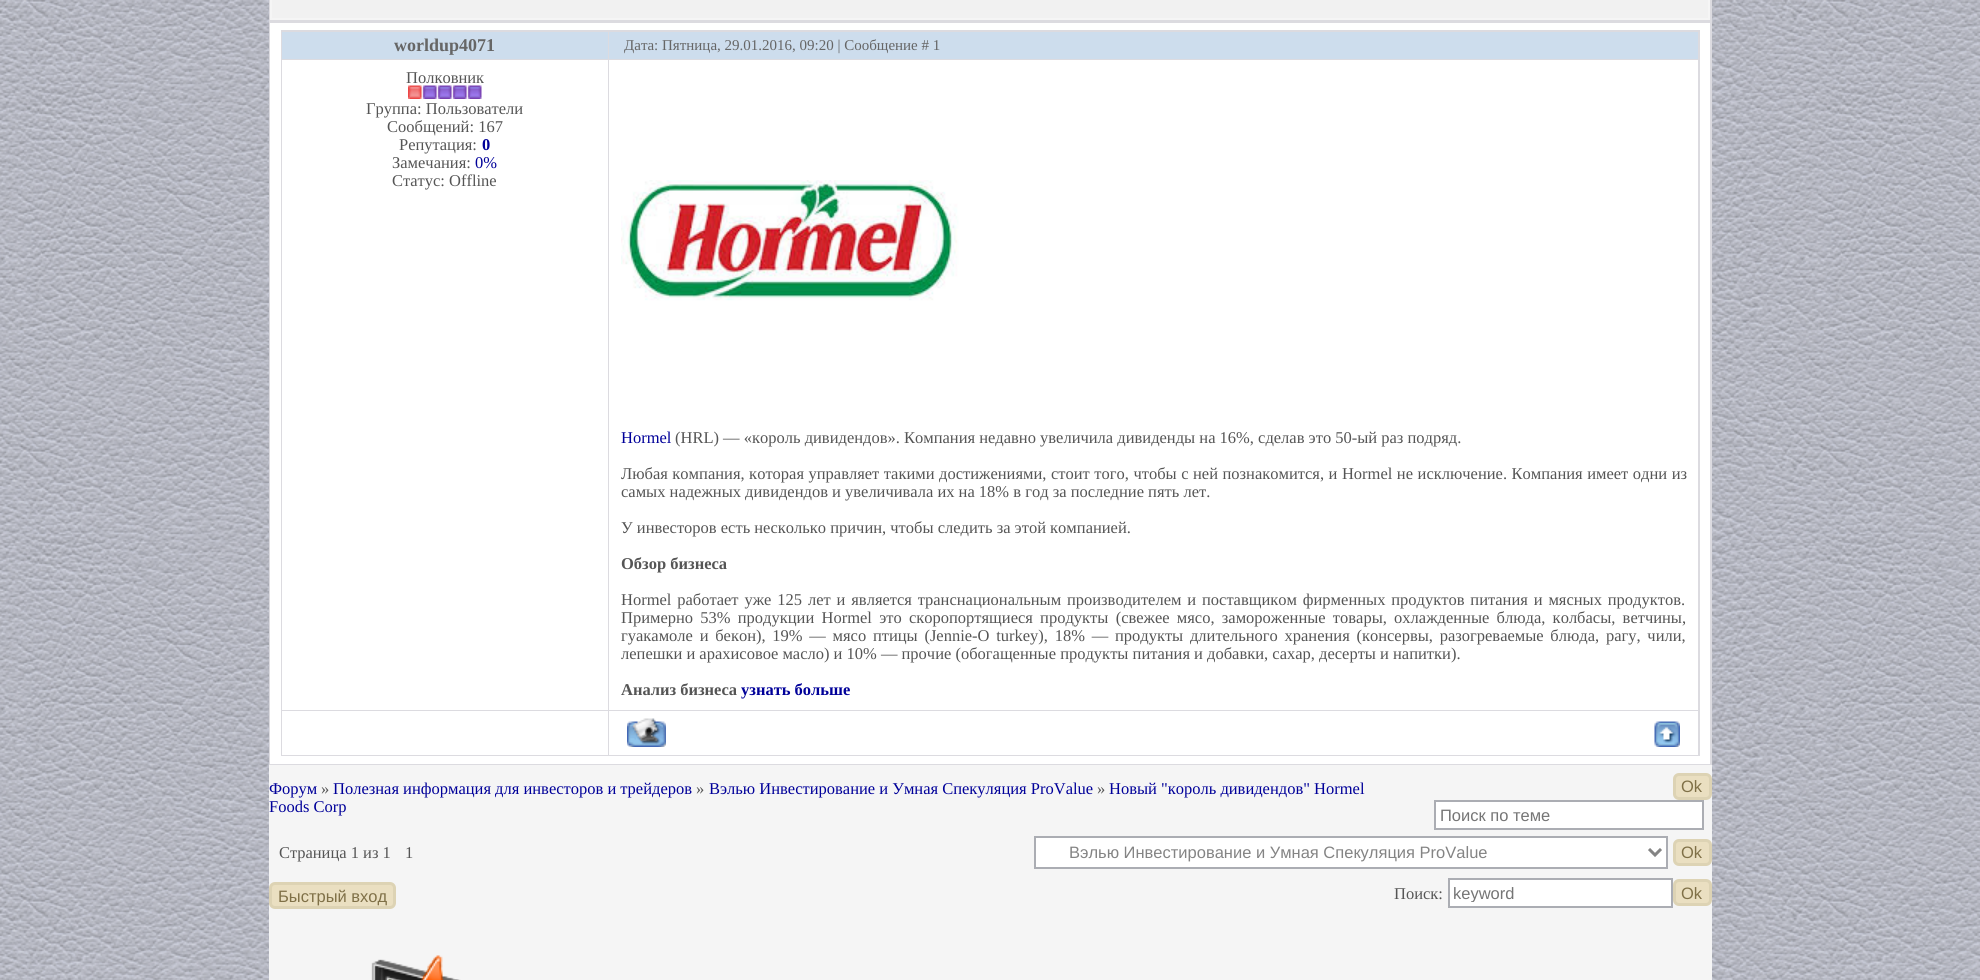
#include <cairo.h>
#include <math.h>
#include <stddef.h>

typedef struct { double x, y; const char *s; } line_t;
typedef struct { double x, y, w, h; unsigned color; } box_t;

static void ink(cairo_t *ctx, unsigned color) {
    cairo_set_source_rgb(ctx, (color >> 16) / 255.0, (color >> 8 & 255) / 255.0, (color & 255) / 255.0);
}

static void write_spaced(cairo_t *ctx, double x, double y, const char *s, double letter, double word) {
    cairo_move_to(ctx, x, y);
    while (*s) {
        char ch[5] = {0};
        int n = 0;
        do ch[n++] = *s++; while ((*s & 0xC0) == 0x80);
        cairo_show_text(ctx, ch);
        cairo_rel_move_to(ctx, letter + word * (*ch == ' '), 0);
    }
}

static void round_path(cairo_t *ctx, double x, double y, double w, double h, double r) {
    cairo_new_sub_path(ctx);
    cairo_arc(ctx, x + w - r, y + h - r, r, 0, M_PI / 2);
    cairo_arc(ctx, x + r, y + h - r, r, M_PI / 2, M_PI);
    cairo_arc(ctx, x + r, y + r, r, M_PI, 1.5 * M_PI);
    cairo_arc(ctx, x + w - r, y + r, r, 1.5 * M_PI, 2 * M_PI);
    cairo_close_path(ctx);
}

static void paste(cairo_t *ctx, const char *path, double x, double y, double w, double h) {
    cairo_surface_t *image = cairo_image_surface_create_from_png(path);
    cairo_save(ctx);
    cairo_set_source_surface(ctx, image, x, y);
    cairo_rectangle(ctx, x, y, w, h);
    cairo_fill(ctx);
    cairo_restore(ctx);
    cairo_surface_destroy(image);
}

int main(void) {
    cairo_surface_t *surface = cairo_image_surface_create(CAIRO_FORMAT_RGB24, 1980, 980);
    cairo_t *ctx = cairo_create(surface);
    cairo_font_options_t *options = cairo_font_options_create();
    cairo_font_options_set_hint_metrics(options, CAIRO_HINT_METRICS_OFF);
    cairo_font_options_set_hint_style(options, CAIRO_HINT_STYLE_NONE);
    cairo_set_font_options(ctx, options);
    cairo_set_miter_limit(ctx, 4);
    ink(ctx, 0xFFFFFF);
    cairo_paint(ctx);
    paste(ctx, "media/1.png", 0, 0, 1980, 980);
    ink(ctx, 0xF5F5F5);
    cairo_rectangle(ctx, 269, 765, 1443, 215);
    cairo_fill(ctx);
    ink(ctx, 0xDCDBE0);
    cairo_rectangle(ctx, 269, 0, 1443, 765);
    cairo_fill(ctx);
    ink(ctx, 0xF1F1F1);
    cairo_rectangle(ctx, 271, -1, 1438, 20);
    cairo_fill_preserve(ctx);
    ink(ctx, 0xF5F5F5);
    cairo_stroke(ctx);
    {
        static const box_t items[] = {
            {270, 23, 1440, 741, 0xFFFFFF},
            {281, 30, 1419, 726, 0xDCDBE0},
            {282, 32, 326, 27, 0xCDDDED},
        };
        for (size_t i = 0; i < sizeof items / sizeof *items; i++) {
            ink(ctx, items[i].color);
            cairo_rectangle(ctx, items[i].x, items[i].y, items[i].w, items[i].h);
            cairo_fill(ctx);
        }
    }
    cairo_select_font_face(ctx, "Liberation Serif", CAIRO_FONT_SLANT_NORMAL, CAIRO_FONT_WEIGHT_BOLD);
    cairo_set_font_size(ctx, 18);
    ink(ctx, 0x666666);
    cairo_move_to(ctx, 394, 51);
    cairo_show_text(ctx, "worldup4071");
    ink(ctx, 0xCDDDED);
    cairo_rectangle(ctx, 609, 32, 1089, 27);
    cairo_fill(ctx);
    cairo_select_font_face(ctx, "Liberation Serif", CAIRO_FONT_SLANT_NORMAL, CAIRO_FONT_WEIGHT_NORMAL);
    cairo_set_font_size(ctx, 15);
    ink(ctx, 0x666666);
    cairo_move_to(ctx, 624, 50);
    cairo_show_text(ctx, "Дата: Пятница, 29.01.2016, 09:20 | Сообщение # 1");
    ink(ctx, 0xFFFFFF);
    cairo_rectangle(ctx, 282, 60, 326, 650);
    cairo_fill(ctx);
    cairo_set_font_size(ctx, 16.5);
    ink(ctx, 0x555555);
    cairo_move_to(ctx, 406, 83);
    cairo_show_text(ctx, "Полковник");
    paste(ctx, "media/2.png", 408, 85, 74, 14);
    {
        static const line_t items[] = {
            {366, 114, "Группа: Пользователи"},
            {387, 132, "Сообщений: 167"},
            {399, 150, "Репутация:"},
        };
        for (size_t i = 0; i < sizeof items / sizeof *items; i++) {
            cairo_move_to(ctx, items[i].x, items[i].y);
            cairo_show_text(ctx, items[i].s);
        }
    }
    cairo_select_font_face(ctx, "Liberation Serif", CAIRO_FONT_SLANT_NORMAL, CAIRO_FONT_WEIGHT_BOLD);
    ink(ctx, 0x000099);
    cairo_move_to(ctx, 482, 150);
    cairo_show_text(ctx, "0");
    cairo_select_font_face(ctx, "Liberation Serif", CAIRO_FONT_SLANT_NORMAL, CAIRO_FONT_WEIGHT_NORMAL);
    ink(ctx, 0x555555);
    cairo_move_to(ctx, 392, 168);
    cairo_show_text(ctx, "Замечания:");
    ink(ctx, 0x000099);
    cairo_move_to(ctx, 475, 168);
    cairo_show_text(ctx, "0%");
    ink(ctx, 0x555555);
    cairo_move_to(ctx, 392, 186);
    cairo_show_text(ctx, "Статус: Offline");
    ink(ctx, 0xFFFFFF);
    cairo_rectangle(ctx, 609, 60, 1089, 650);
    cairo_fill(ctx);
    paste(ctx, "media/3.png", 621, 180, 338, 121);
    ink(ctx, 0x000099);
    cairo_move_to(ctx, 621, 443);
    cairo_show_text(ctx, "Hormel");
    ink(ctx, 0x555555);
    cairo_move_to(ctx, 675, 443);
    cairo_show_text(ctx, "(HRL) — «король дивидендов». Компания недавно увеличила дивиденды на 16%, сделав это 50-ый раз подряд.");
    write_spaced(ctx, 621, 479, "Любая компания, которая управляет такими достижениями, стоит того, чтобы с ней познакомится, и Hormel не исключение. Компания имеет одни из", 0, 0.4);
    cairo_move_to(ctx, 621, 497);
    cairo_show_text(ctx, "самых надежных дивидендов и увеличивала их на 18% в год за последние пять лет.");
    cairo_move_to(ctx, 621, 533);
    cairo_show_text(ctx, "У инвесторов есть несколько причин, чтобы следить за этой компанией.");
    cairo_select_font_face(ctx, "Liberation Serif", CAIRO_FONT_SLANT_NORMAL, CAIRO_FONT_WEIGHT_BOLD);
    cairo_move_to(ctx, 621, 569);
    cairo_show_text(ctx, "Обзор бизнеса");
    cairo_select_font_face(ctx, "Liberation Serif", CAIRO_FONT_SLANT_NORMAL, CAIRO_FONT_WEIGHT_NORMAL);
    write_spaced(ctx, 621, 605, "Hormel работает уже 125 лет и является транснациональным производителем и поставщиком фирменных продуктов питания и мясных продуктов.", 0, 1.75);
    write_spaced(ctx, 621, 623, "Примерно 53% продукции Hormel это скоропортящиеся продукты (свежее мясо, замороженные товары, охлажденные блюда, колбасы, ветчины,", 0, 3.1);
    write_spaced(ctx, 621, 641, "гуакамоле и бекон), 19% — мясо птицы (Jennie-O turkey), 18% — продукты длительного хранения (консервы, разогреваемые блюда, рагу, чили,", 0, 2.6);
    cairo_move_to(ctx, 621, 659);
    cairo_show_text(ctx, "лепешки и арахисовое масло) и 10% — прочие (обогащенные продукты питания и добавки, сахар, десерты и напитки).");
    cairo_select_font_face(ctx, "Liberation Serif", CAIRO_FONT_SLANT_NORMAL, CAIRO_FONT_WEIGHT_BOLD);
    cairo_move_to(ctx, 621, 695);
    cairo_show_text(ctx, "Анализ бизнеса");
    ink(ctx, 0x000099);
    cairo_move_to(ctx, 741, 695);
    cairo_show_text(ctx, "узнать больше");
    ink(ctx, 0xFFFFFF);
    cairo_rectangle(ctx, 282, 711, 326, 44);
    cairo_fill(ctx);
    cairo_rectangle(ctx, 609, 711, 1089, 44);
    cairo_fill(ctx);
    paste(ctx, "media/4.png", 627, 718, 39, 29);
    paste(ctx, "media/5.png", 1654, 721, 26, 26);
    cairo_select_font_face(ctx, "Liberation Serif", CAIRO_FONT_SLANT_NORMAL, CAIRO_FONT_WEIGHT_NORMAL);
    ink(ctx, 0x000099);
    cairo_move_to(ctx, 269, 794);
    cairo_show_text(ctx, "Форум");
    ink(ctx, 0x555555);
    cairo_move_to(ctx, 321, 794);
    cairo_show_text(ctx, "»");
    ink(ctx, 0x000099);
    cairo_move_to(ctx, 333, 794);
    cairo_show_text(ctx, "Полезная информация для инвесторов и трейдеров");
    ink(ctx, 0x555555);
    cairo_move_to(ctx, 696, 794);
    cairo_show_text(ctx, "»");
    ink(ctx, 0x000099);
    cairo_move_to(ctx, 709, 794);
    cairo_show_text(ctx, "Вэлью Инвестирование и Умная Спекуляция ProValue");
    ink(ctx, 0x555555);
    cairo_move_to(ctx, 1097, 794);
    cairo_show_text(ctx, "»");
    ink(ctx, 0x000099);
    cairo_move_to(ctx, 1109, 794);
    cairo_show_text(ctx, "Новый \"король дивидендов\" Hormel");
    cairo_move_to(ctx, 269, 812);
    cairo_show_text(ctx, "Foods Corp");
    ink(ctx, 0xEADFC1);
    round_path(ctx, 1674.5, 774.5, 36, 24, 4.5);
    cairo_fill_preserve(ctx);
    ink(ctx, 0xDDD3B4);
    cairo_set_line_width(ctx, 3);
    cairo_stroke(ctx);
    cairo_select_font_face(ctx, "Liberation Sans", CAIRO_FONT_SLANT_NORMAL, CAIRO_FONT_WEIGHT_NORMAL);
    ink(ctx, 0x7F7047);
    cairo_move_to(ctx, 1681, 792);
    cairo_show_text(ctx, "Ok");
    ink(ctx, 0xFFFFFF);
    cairo_rectangle(ctx, 1435, 801, 268, 28);
    cairo_fill_preserve(ctx);
    ink(ctx, 0xABADB3);
    cairo_set_line_width(ctx, 2);
    cairo_stroke(ctx);
    ink(ctx, 0x757575);
    cairo_move_to(ctx, 1440, 821);
    cairo_show_text(ctx, "Поиск по теме");
    cairo_select_font_face(ctx, "Liberation Serif", CAIRO_FONT_SLANT_NORMAL, CAIRO_FONT_WEIGHT_NORMAL);
    ink(ctx, 0x555555);
    cairo_move_to(ctx, 279, 858);
    cairo_show_text(ctx, "Страница 1 из 1");
    cairo_move_to(ctx, 405, 858);
    cairo_show_text(ctx, "1");
    ink(ctx, 0xFFFFFF);
    cairo_rectangle(ctx, 1035, 837, 632, 31);
    cairo_fill_preserve(ctx);
    ink(ctx, 0xABADB3);
    cairo_stroke(ctx);
    cairo_new_path(ctx);
    cairo_move_to(ctx, 1649, 849);
    cairo_line_to(ctx, 1655, 855);
    cairo_line_to(ctx, 1661, 849);
    ink(ctx, 0x848484);
    cairo_set_line_width(ctx, 3);
    cairo_stroke(ctx);
    cairo_select_font_face(ctx, "Liberation Sans", CAIRO_FONT_SLANT_NORMAL, CAIRO_FONT_WEIGHT_NORMAL);
    cairo_move_to(ctx, 1069, 858);
    cairo_show_text(ctx, "Вэлью Инвестирование и Умная Спекуляция ProValue");
    ink(ctx, 0xEADFC1);
    round_path(ctx, 1674.5, 840.5, 36, 24, 4.5);
    cairo_fill_preserve(ctx);
    ink(ctx, 0xDDD3B4);
    cairo_stroke(ctx);
    ink(ctx, 0x7F7047);
    cairo_move_to(ctx, 1681, 858);
    cairo_show_text(ctx, "Ok");
    ink(ctx, 0xEADFC1);
    round_path(ctx, 270.5, 883.5, 124, 24, 4.5);
    cairo_fill_preserve(ctx);
    ink(ctx, 0xDDD3B4);
    cairo_stroke(ctx);
    ink(ctx, 0x7F7047);
    cairo_move_to(ctx, 278, 902);
    cairo_show_text(ctx, "Быстрый вход");
    cairo_select_font_face(ctx, "Liberation Serif", CAIRO_FONT_SLANT_NORMAL, CAIRO_FONT_WEIGHT_NORMAL);
    ink(ctx, 0x555555);
    cairo_move_to(ctx, 1394, 899);
    cairo_show_text(ctx, "Поиск:");
    ink(ctx, 0xFFFFFF);
    cairo_rectangle(ctx, 1449, 879, 223, 28);
    cairo_fill_preserve(ctx);
    ink(ctx, 0xABADB3);
    cairo_set_line_width(ctx, 2);
    cairo_stroke(ctx);
    cairo_save(ctx);
    cairo_rectangle(ctx, 1454, 884, 213, 18);
    cairo_clip(ctx);
    cairo_select_font_face(ctx, "Liberation Sans", CAIRO_FONT_SLANT_NORMAL, CAIRO_FONT_WEIGHT_NORMAL);
    ink(ctx, 0x757575);
    cairo_move_to(ctx, 1453, 899);
    cairo_show_text(ctx, "keyword");
    cairo_restore(ctx);
    ink(ctx, 0xEADFC1);
    round_path(ctx, 1674.5, 880.5, 36, 24, 4.5);
    cairo_fill_preserve(ctx);
    ink(ctx, 0xDDD3B4);
    cairo_set_line_width(ctx, 3);
    cairo_stroke(ctx);
    cairo_select_font_face(ctx, "Liberation Sans", CAIRO_FONT_SLANT_NORMAL, CAIRO_FONT_WEIGHT_NORMAL);
    ink(ctx, 0x7F7047);
    cairo_move_to(ctx, 1681, 899);
    cairo_show_text(ctx, "Ok");
    paste(ctx, "media/6.png", 371, 955, 90, 25);
    cairo_surface_write_to_png(surface, "image.png");
    cairo_font_options_destroy(options);
    cairo_destroy(ctx);
    cairo_surface_destroy(surface);
    return 0;
}
